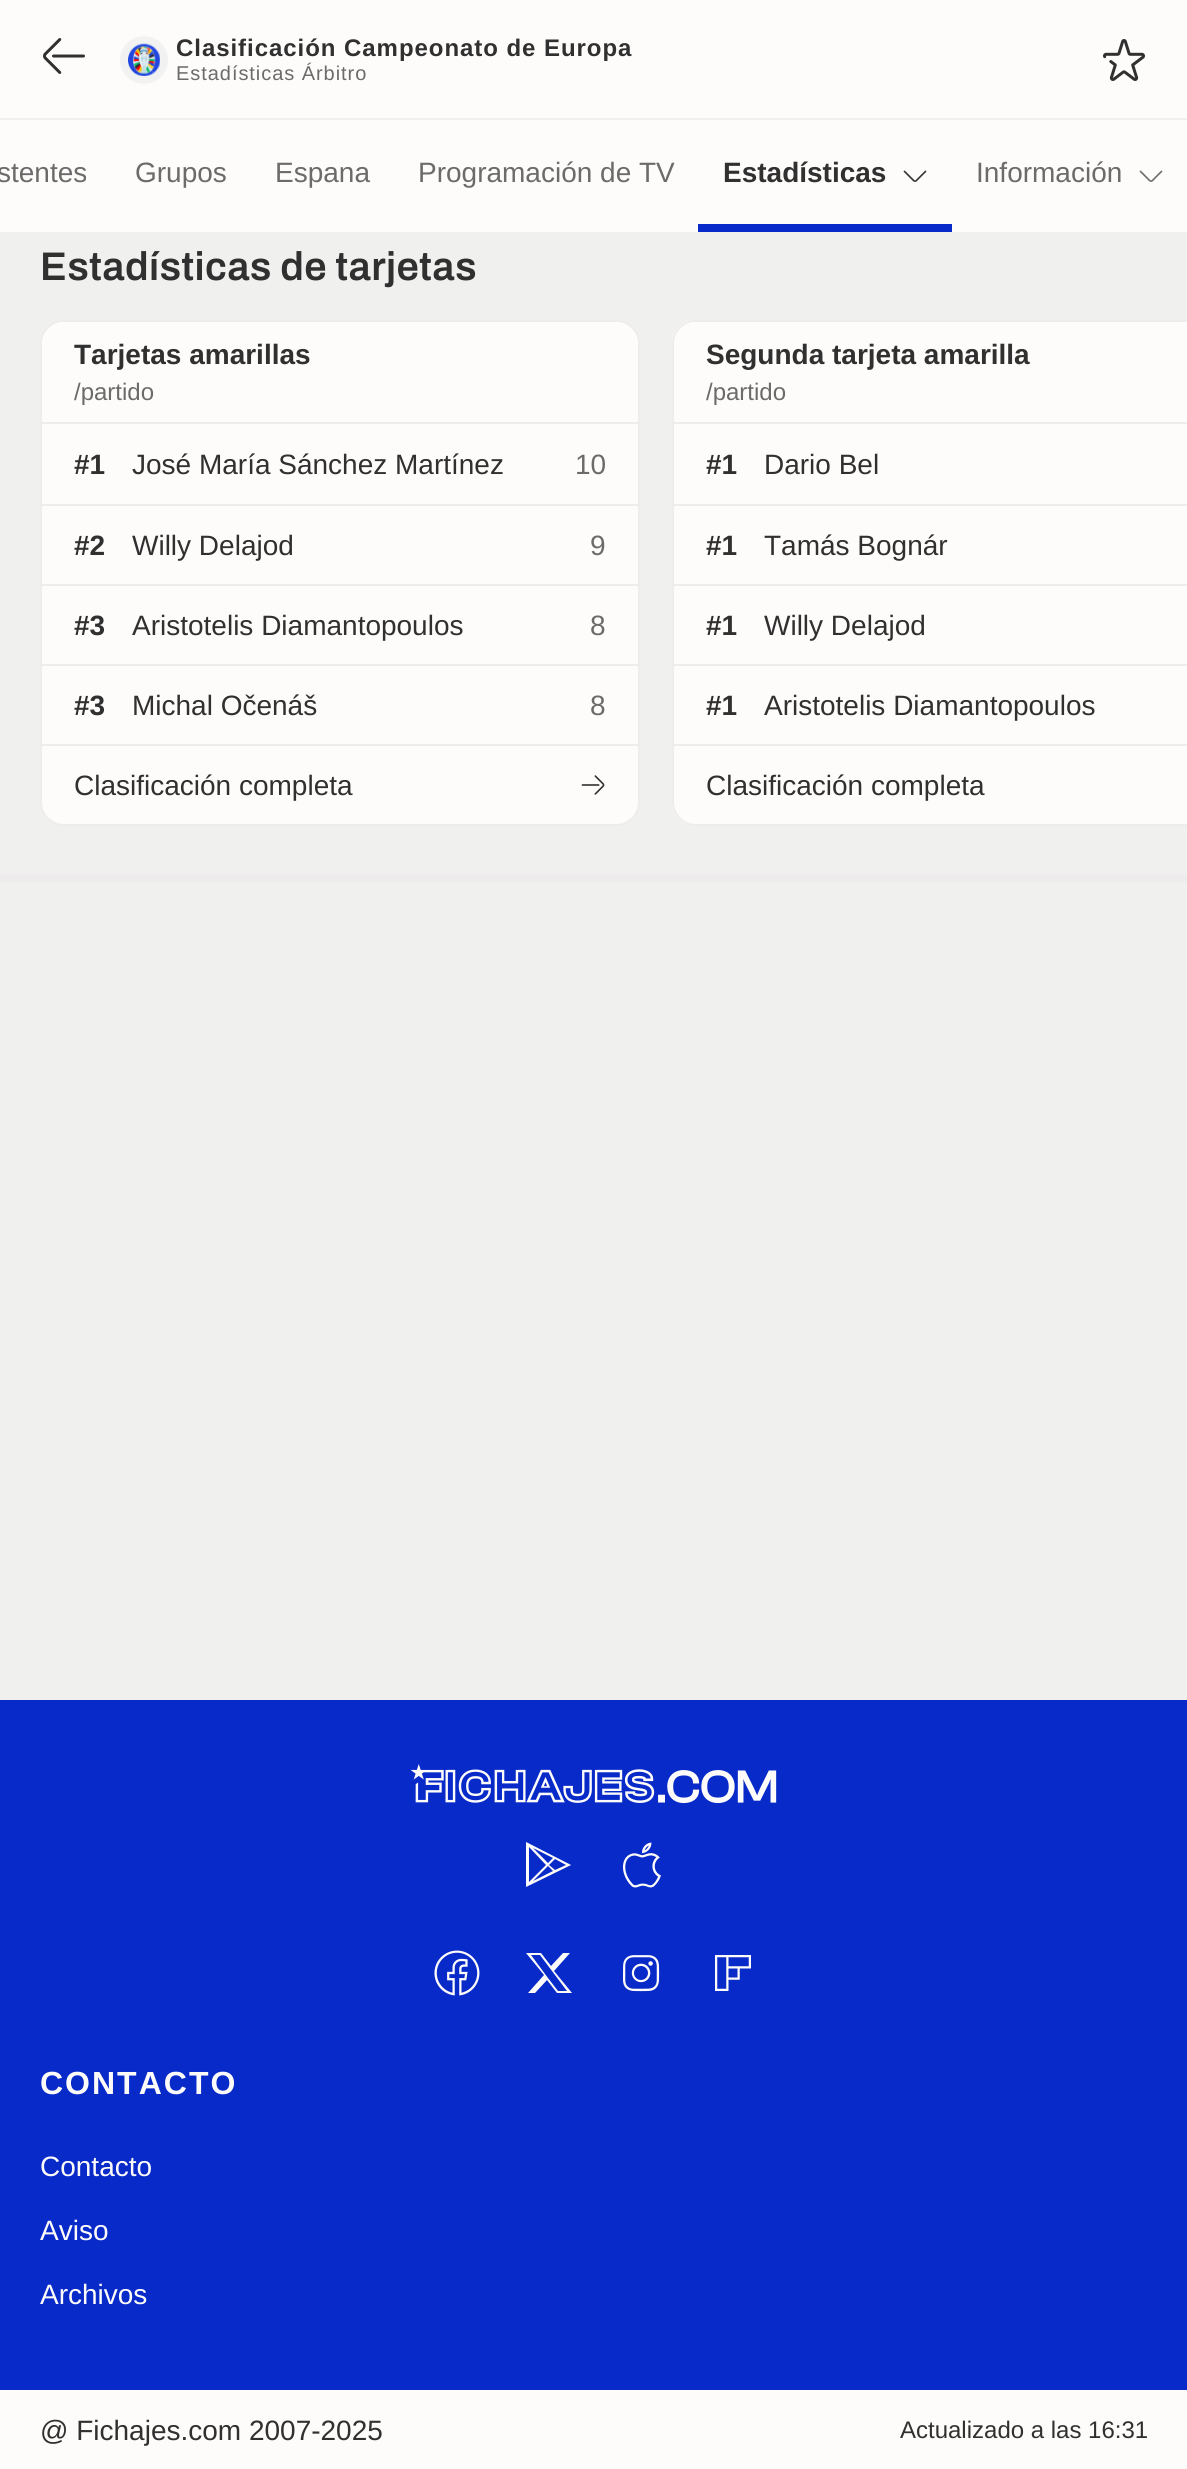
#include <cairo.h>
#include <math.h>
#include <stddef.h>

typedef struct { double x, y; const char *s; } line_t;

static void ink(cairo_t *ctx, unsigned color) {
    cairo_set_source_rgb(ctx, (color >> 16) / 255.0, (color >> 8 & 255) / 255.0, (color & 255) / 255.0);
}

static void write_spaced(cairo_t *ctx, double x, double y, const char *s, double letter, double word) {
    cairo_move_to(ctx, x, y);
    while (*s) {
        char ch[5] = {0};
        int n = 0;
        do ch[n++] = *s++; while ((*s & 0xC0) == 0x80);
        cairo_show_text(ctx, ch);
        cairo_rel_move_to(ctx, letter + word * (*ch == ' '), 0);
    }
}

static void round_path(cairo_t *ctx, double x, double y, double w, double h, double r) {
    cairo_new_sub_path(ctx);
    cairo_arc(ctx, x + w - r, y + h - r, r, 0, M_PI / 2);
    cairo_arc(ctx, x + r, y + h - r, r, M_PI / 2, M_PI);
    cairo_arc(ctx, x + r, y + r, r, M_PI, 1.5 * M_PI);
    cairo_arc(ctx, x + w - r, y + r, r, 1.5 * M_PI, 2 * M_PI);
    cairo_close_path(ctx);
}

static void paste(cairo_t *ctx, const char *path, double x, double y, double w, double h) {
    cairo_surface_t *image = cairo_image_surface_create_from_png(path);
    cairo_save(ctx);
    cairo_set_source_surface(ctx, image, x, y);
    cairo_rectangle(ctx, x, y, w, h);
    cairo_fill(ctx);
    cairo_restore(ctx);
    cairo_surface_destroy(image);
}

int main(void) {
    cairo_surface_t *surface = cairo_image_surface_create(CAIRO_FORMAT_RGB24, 1187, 2469);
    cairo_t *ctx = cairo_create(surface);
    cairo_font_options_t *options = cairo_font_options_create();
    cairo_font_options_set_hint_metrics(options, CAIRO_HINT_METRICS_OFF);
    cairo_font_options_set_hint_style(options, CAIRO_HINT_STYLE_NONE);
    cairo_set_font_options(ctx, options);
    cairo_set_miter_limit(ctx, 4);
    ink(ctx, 0xF0F0EF);
    cairo_paint(ctx);
    ink(ctx, 0xFEFCFB);
    cairo_rectangle(ctx, 0, 0, 1187, 118);
    cairo_fill(ctx);
    paste(ctx, "media/1.png", 43, 38, 42, 36);
    ink(ctx, 0xF2F2F2);
    cairo_arc(ctx, 144, 60, 24, 0, 2 * M_PI);
    cairo_fill(ctx);
    paste(ctx, "media/2.png", 128, 43, 32, 33);
    cairo_select_font_face(ctx, "Liberation Sans", CAIRO_FONT_SLANT_NORMAL, CAIRO_FONT_WEIGHT_BOLD);
    cairo_set_font_size(ctx, 24);
    ink(ctx, 0x303030);
    write_spaced(ctx, 176, 56, "Clasificación Campeonato de Europa", 0.95, 0);
    cairo_select_font_face(ctx, "Liberation Sans", CAIRO_FONT_SLANT_NORMAL, CAIRO_FONT_WEIGHT_NORMAL);
    cairo_set_font_size(ctx, 20);
    ink(ctx, 0x6B6B6B);
    write_spaced(ctx, 176, 80, "Estadísticas Árbitro", 0.95, 0);
    paste(ctx, "media/3.png", 1103, 39, 42, 42);
    ink(ctx, 0xFEFCFB);
    cairo_rectangle(ctx, 0, 120, 1187, 112);
    cairo_fill(ctx);
    cairo_set_font_size(ctx, 28);
    ink(ctx, 0x6B6B6B);
    {
        static const line_t items[] = {
            {-3, 182, "stentes"},
            {135, 182, "Grupos"},
            {275, 182, "Espana"},
            {418, 182, "Programación de TV"},
        };
        for (size_t i = 0; i < sizeof items / sizeof *items; i++) {
            cairo_move_to(ctx, items[i].x, items[i].y);
            cairo_show_text(ctx, items[i].s);
        }
    }
    cairo_select_font_face(ctx, "Liberation Sans", CAIRO_FONT_SLANT_NORMAL, CAIRO_FONT_WEIGHT_BOLD);
    ink(ctx, 0x303030);
    cairo_move_to(ctx, 723, 182);
    cairo_show_text(ctx, "Estadísticas");
    paste(ctx, "media/4.png", 903, 170, 24, 12);
    cairo_select_font_face(ctx, "Liberation Sans", CAIRO_FONT_SLANT_NORMAL, CAIRO_FONT_WEIGHT_NORMAL);
    ink(ctx, 0x6B6B6B);
    cairo_move_to(ctx, 976, 182);
    cairo_show_text(ctx, "Información");
    paste(ctx, "media/5.png", 1139, 170, 24, 12);
    ink(ctx, 0x072AC8);
    cairo_rectangle(ctx, 698, 224, 254, 8);
    cairo_fill(ctx);
    ink(ctx, 0xEEECEC);
    cairo_rectangle(ctx, 0, 874, 1187, 8);
    cairo_fill(ctx);
    cairo_select_font_face(ctx, "Archivo SemiBold", CAIRO_FONT_SLANT_NORMAL, CAIRO_FONT_WEIGHT_NORMAL);
    cairo_set_font_size(ctx, 40);
    ink(ctx, 0x303030);
    write_spaced(ctx, 40, 280, "Estadísticas de tarjetas", 0.4, 0);
    ink(ctx, 0xFEFCFB);
    round_path(ctx, 41, 321, 598, 504, 23);
    cairo_fill_preserve(ctx);
    ink(ctx, 0xEEECEC);
    cairo_stroke(ctx);
    ink(ctx, 0xFEFCFB);
    cairo_new_path(ctx);
    cairo_move_to(ctx, 64, 322);
    cairo_line_to(ctx, 616, 322);
    cairo_curve_to(ctx, 628, 322, 638, 332, 638, 344);
    cairo_line_to(ctx, 638, 424);
    cairo_line_to(ctx, 42, 424);
    cairo_line_to(ctx, 42, 344);
    cairo_curve_to(ctx, 42, 332, 52, 322, 64, 322);
    cairo_close_path(ctx);
    cairo_fill(ctx);
    ink(ctx, 0xEEECEC);
    cairo_rectangle(ctx, 42, 422, 596, 2);
    cairo_fill(ctx);
    cairo_select_font_face(ctx, "Liberation Sans", CAIRO_FONT_SLANT_NORMAL, CAIRO_FONT_WEIGHT_BOLD);
    cairo_set_font_size(ctx, 28);
    ink(ctx, 0x303030);
    cairo_move_to(ctx, 74, 364);
    cairo_show_text(ctx, "Tarjetas amarillas");
    cairo_select_font_face(ctx, "Liberation Sans", CAIRO_FONT_SLANT_NORMAL, CAIRO_FONT_WEIGHT_NORMAL);
    cairo_set_font_size(ctx, 24);
    ink(ctx, 0x6B6B6B);
    cairo_move_to(ctx, 74, 400);
    cairo_show_text(ctx, "/partido");
    cairo_select_font_face(ctx, "Liberation Sans", CAIRO_FONT_SLANT_NORMAL, CAIRO_FONT_WEIGHT_BOLD);
    cairo_set_font_size(ctx, 28);
    ink(ctx, 0x303030);
    cairo_move_to(ctx, 74, 474);
    cairo_show_text(ctx, "#1");
    cairo_select_font_face(ctx, "Liberation Sans", CAIRO_FONT_SLANT_NORMAL, CAIRO_FONT_WEIGHT_NORMAL);
    cairo_move_to(ctx, 132, 474);
    cairo_show_text(ctx, "José María Sánchez Martínez");
    ink(ctx, 0x6B6B6B);
    cairo_move_to(ctx, 575, 474);
    cairo_show_text(ctx, "10");
    ink(ctx, 0xEEECEC);
    cairo_rectangle(ctx, 42, 504, 596, 2);
    cairo_fill(ctx);
    cairo_select_font_face(ctx, "Liberation Sans", CAIRO_FONT_SLANT_NORMAL, CAIRO_FONT_WEIGHT_BOLD);
    ink(ctx, 0x303030);
    cairo_move_to(ctx, 74, 555);
    cairo_show_text(ctx, "#2");
    cairo_select_font_face(ctx, "Liberation Sans", CAIRO_FONT_SLANT_NORMAL, CAIRO_FONT_WEIGHT_NORMAL);
    cairo_move_to(ctx, 132, 555);
    cairo_show_text(ctx, "Willy Delajod");
    ink(ctx, 0x6B6B6B);
    cairo_move_to(ctx, 590, 555);
    cairo_show_text(ctx, "9");
    ink(ctx, 0xEEECEC);
    cairo_rectangle(ctx, 42, 584, 596, 2);
    cairo_fill(ctx);
    cairo_select_font_face(ctx, "Liberation Sans", CAIRO_FONT_SLANT_NORMAL, CAIRO_FONT_WEIGHT_BOLD);
    ink(ctx, 0x303030);
    cairo_move_to(ctx, 74, 635);
    cairo_show_text(ctx, "#3");
    cairo_select_font_face(ctx, "Liberation Sans", CAIRO_FONT_SLANT_NORMAL, CAIRO_FONT_WEIGHT_NORMAL);
    cairo_move_to(ctx, 132, 635);
    cairo_show_text(ctx, "Aristotelis Diamantopoulos");
    ink(ctx, 0x6B6B6B);
    cairo_move_to(ctx, 590, 635);
    cairo_show_text(ctx, "8");
    ink(ctx, 0xEEECEC);
    cairo_rectangle(ctx, 42, 664, 596, 2);
    cairo_fill(ctx);
    cairo_select_font_face(ctx, "Liberation Sans", CAIRO_FONT_SLANT_NORMAL, CAIRO_FONT_WEIGHT_BOLD);
    ink(ctx, 0x303030);
    cairo_move_to(ctx, 74, 715);
    cairo_show_text(ctx, "#3");
    cairo_select_font_face(ctx, "Liberation Sans", CAIRO_FONT_SLANT_NORMAL, CAIRO_FONT_WEIGHT_NORMAL);
    cairo_move_to(ctx, 132, 715);
    cairo_show_text(ctx, "Michal Očenáš");
    ink(ctx, 0x6B6B6B);
    cairo_move_to(ctx, 590, 715);
    cairo_show_text(ctx, "8");
    ink(ctx, 0xEEECEC);
    cairo_rectangle(ctx, 42, 744, 596, 2);
    cairo_fill(ctx);
    ink(ctx, 0x303030);
    cairo_move_to(ctx, 74, 795);
    cairo_show_text(ctx, "Clasificación completa");
    paste(ctx, "media/6.png", 581, 775, 24, 20);
    ink(ctx, 0xFEFCFB);
    cairo_new_path(ctx);
    cairo_move_to(ctx, 696, 320);
    cairo_line_to(ctx, 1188, 320);
    cairo_line_to(ctx, 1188, 826);
    cairo_line_to(ctx, 696, 826);
    cairo_curve_to(ctx, 682.5, 826, 672, 815.5, 672, 802);
    cairo_line_to(ctx, 672, 344);
    cairo_curve_to(ctx, 672, 330.5, 682.5, 320, 696, 320);
    cairo_close_path(ctx);
    cairo_fill(ctx);
    round_path(ctx, 673, 321, 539, 504, 23);
    ink(ctx, 0xEEECEC);
    cairo_stroke(ctx);
    ink(ctx, 0xFEFCFB);
    cairo_new_path(ctx);
    cairo_move_to(ctx, 696, 322);
    cairo_line_to(ctx, 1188, 322);
    cairo_line_to(ctx, 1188, 424);
    cairo_line_to(ctx, 674, 424);
    cairo_line_to(ctx, 674, 344);
    cairo_curve_to(ctx, 674, 332, 684, 322, 696, 322);
    cairo_close_path(ctx);
    cairo_fill(ctx);
    ink(ctx, 0xEEECEC);
    cairo_rectangle(ctx, 674, 422, 513, 2);
    cairo_fill(ctx);
    cairo_select_font_face(ctx, "Liberation Sans", CAIRO_FONT_SLANT_NORMAL, CAIRO_FONT_WEIGHT_BOLD);
    ink(ctx, 0x303030);
    cairo_move_to(ctx, 706, 364);
    cairo_show_text(ctx, "Segunda tarjeta amarilla");
    cairo_select_font_face(ctx, "Liberation Sans", CAIRO_FONT_SLANT_NORMAL, CAIRO_FONT_WEIGHT_NORMAL);
    cairo_set_font_size(ctx, 24);
    ink(ctx, 0x6B6B6B);
    cairo_move_to(ctx, 706, 400);
    cairo_show_text(ctx, "/partido");
    cairo_select_font_face(ctx, "Liberation Sans", CAIRO_FONT_SLANT_NORMAL, CAIRO_FONT_WEIGHT_BOLD);
    cairo_set_font_size(ctx, 28);
    ink(ctx, 0x303030);
    cairo_move_to(ctx, 706, 474);
    cairo_show_text(ctx, "#1");
    cairo_select_font_face(ctx, "Liberation Sans", CAIRO_FONT_SLANT_NORMAL, CAIRO_FONT_WEIGHT_NORMAL);
    cairo_move_to(ctx, 764, 474);
    cairo_show_text(ctx, "Dario Bel");
    ink(ctx, 0xEEECEC);
    cairo_rectangle(ctx, 674, 504, 513, 2);
    cairo_fill(ctx);
    cairo_select_font_face(ctx, "Liberation Sans", CAIRO_FONT_SLANT_NORMAL, CAIRO_FONT_WEIGHT_BOLD);
    ink(ctx, 0x303030);
    cairo_move_to(ctx, 706, 555);
    cairo_show_text(ctx, "#1");
    cairo_select_font_face(ctx, "Liberation Sans", CAIRO_FONT_SLANT_NORMAL, CAIRO_FONT_WEIGHT_NORMAL);
    cairo_move_to(ctx, 764, 555);
    cairo_show_text(ctx, "Tamás Bognár");
    ink(ctx, 0xEEECEC);
    cairo_rectangle(ctx, 674, 584, 513, 2);
    cairo_fill(ctx);
    cairo_select_font_face(ctx, "Liberation Sans", CAIRO_FONT_SLANT_NORMAL, CAIRO_FONT_WEIGHT_BOLD);
    ink(ctx, 0x303030);
    cairo_move_to(ctx, 706, 635);
    cairo_show_text(ctx, "#1");
    cairo_select_font_face(ctx, "Liberation Sans", CAIRO_FONT_SLANT_NORMAL, CAIRO_FONT_WEIGHT_NORMAL);
    cairo_move_to(ctx, 764, 635);
    cairo_show_text(ctx, "Willy Delajod");
    ink(ctx, 0xEEECEC);
    cairo_rectangle(ctx, 674, 664, 513, 2);
    cairo_fill(ctx);
    cairo_select_font_face(ctx, "Liberation Sans", CAIRO_FONT_SLANT_NORMAL, CAIRO_FONT_WEIGHT_BOLD);
    ink(ctx, 0x303030);
    cairo_move_to(ctx, 706, 715);
    cairo_show_text(ctx, "#1");
    cairo_select_font_face(ctx, "Liberation Sans", CAIRO_FONT_SLANT_NORMAL, CAIRO_FONT_WEIGHT_NORMAL);
    cairo_move_to(ctx, 764, 715);
    cairo_show_text(ctx, "Aristotelis Diamantopoulos");
    ink(ctx, 0xEEECEC);
    cairo_rectangle(ctx, 674, 744, 513, 2);
    cairo_fill(ctx);
    ink(ctx, 0x303030);
    cairo_move_to(ctx, 706, 795);
    cairo_show_text(ctx, "Clasificación completa");
    ink(ctx, 0x072AC8);
    cairo_rectangle(ctx, 0, 1700, 1187, 690);
    cairo_fill(ctx);
    paste(ctx, "media/7.png", 410, 1764, 367, 40);
    ink(ctx, 0xFEFCFB);
    cairo_new_path(ctx);
    cairo_move_to(ctx, 526, 1842);
    cairo_line_to(ctx, 526, 1887);
    cairo_line_to(ctx, 571, 1865);
    cairo_close_path(ctx);
    cairo_move_to(ctx, 546, 1865);
    cairo_line_to(ctx, 529, 1882);
    cairo_line_to(ctx, 529, 1847);
    cairo_close_path(ctx);
    cairo_move_to(ctx, 533, 1848);
    cairo_line_to(ctx, 553, 1858);
    cairo_line_to(ctx, 548, 1863);
    cairo_close_path(ctx);
    cairo_move_to(ctx, 548, 1866);
    cairo_line_to(ctx, 553, 1871);
    cairo_line_to(ctx, 533, 1881);
    cairo_close_path(ctx);
    cairo_move_to(ctx, 549, 1865);
    cairo_line_to(ctx, 555, 1859);
    cairo_line_to(ctx, 566, 1865);
    cairo_line_to(ctx, 555, 1870);
    cairo_close_path(ctx);
    cairo_fill(ctx);
    paste(ctx, "media/8.png", 622, 1842, 39, 46);
    paste(ctx, "media/9.png", 434, 1950, 46, 46);
    cairo_new_path(ctx);
    cairo_move_to(ctx, 554, 1971);
    cairo_line_to(ctx, 570, 1953);
    cairo_line_to(ctx, 563, 1953);
    cairo_line_to(ctx, 551, 1966);
    cairo_line_to(ctx, 541, 1953);
    cairo_line_to(ctx, 526, 1953);
    cairo_line_to(ctx, 544, 1975);
    cairo_line_to(ctx, 528, 1993);
    cairo_line_to(ctx, 535, 1993);
    cairo_line_to(ctx, 547, 1980);
    cairo_line_to(ctx, 557, 1993);
    cairo_line_to(ctx, 572, 1993);
    cairo_close_path(ctx);
    cairo_move_to(ctx, 548, 1978);
    cairo_line_to(ctx, 531, 1955);
    cairo_line_to(ctx, 540, 1955);
    cairo_line_to(ctx, 567, 1991);
    cairo_line_to(ctx, 558, 1991);
    cairo_close_path(ctx);
    cairo_fill(ctx);
    paste(ctx, "media/10.png", 623, 1955, 37, 37);
    paste(ctx, "media/11.png", 715, 1955, 36, 36);
    cairo_select_font_face(ctx, "Liberation Sans", CAIRO_FONT_SLANT_NORMAL, CAIRO_FONT_WEIGHT_BOLD);
    cairo_set_font_size(ctx, 32);
    write_spaced(ctx, 40, 2094, "CONTACTO", 2, 0);
    cairo_select_font_face(ctx, "Liberation Sans", CAIRO_FONT_SLANT_NORMAL, CAIRO_FONT_WEIGHT_NORMAL);
    cairo_set_font_size(ctx, 28);
    {
        static const line_t items[] = {
            {40, 2176, "Contacto"},
            {40, 2240, "Aviso"},
            {40, 2304, "Archivos"},
        };
        for (size_t i = 0; i < sizeof items / sizeof *items; i++) {
            cairo_move_to(ctx, items[i].x, items[i].y);
            cairo_show_text(ctx, items[i].s);
        }
    }
    cairo_rectangle(ctx, 0, 2390, 1187, 79);
    cairo_fill(ctx);
    ink(ctx, 0x303030);
    cairo_move_to(ctx, 40, 2440);
    cairo_show_text(ctx, "@ Fichajes.com 2007-2025");
    cairo_set_font_size(ctx, 24);
    cairo_move_to(ctx, 900, 2438);
    cairo_show_text(ctx, "Actualizado a las 16:31");
    cairo_surface_write_to_png(surface, "image.png");
    cairo_font_options_destroy(options);
    cairo_destroy(ctx);
    cairo_surface_destroy(surface);
    return 0;
}
